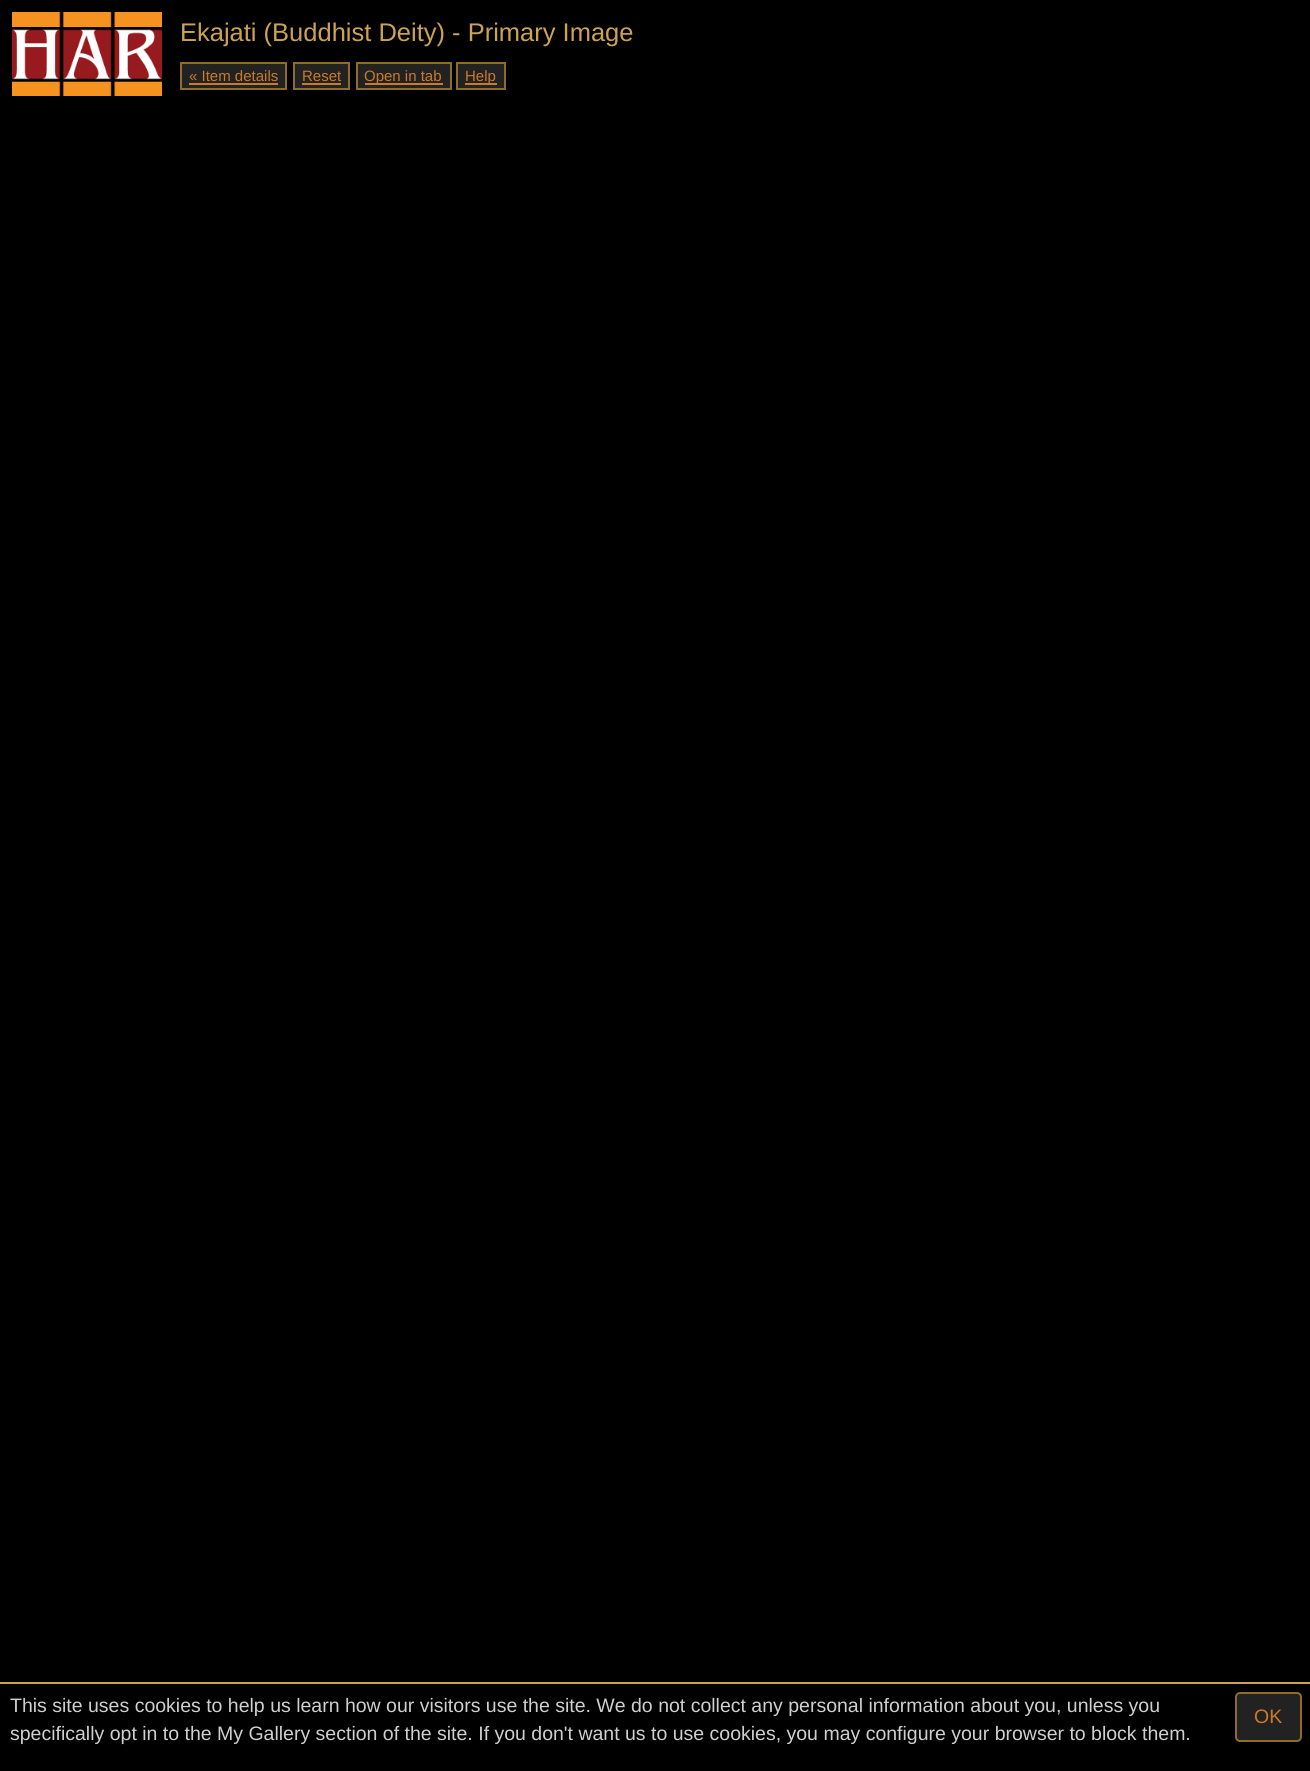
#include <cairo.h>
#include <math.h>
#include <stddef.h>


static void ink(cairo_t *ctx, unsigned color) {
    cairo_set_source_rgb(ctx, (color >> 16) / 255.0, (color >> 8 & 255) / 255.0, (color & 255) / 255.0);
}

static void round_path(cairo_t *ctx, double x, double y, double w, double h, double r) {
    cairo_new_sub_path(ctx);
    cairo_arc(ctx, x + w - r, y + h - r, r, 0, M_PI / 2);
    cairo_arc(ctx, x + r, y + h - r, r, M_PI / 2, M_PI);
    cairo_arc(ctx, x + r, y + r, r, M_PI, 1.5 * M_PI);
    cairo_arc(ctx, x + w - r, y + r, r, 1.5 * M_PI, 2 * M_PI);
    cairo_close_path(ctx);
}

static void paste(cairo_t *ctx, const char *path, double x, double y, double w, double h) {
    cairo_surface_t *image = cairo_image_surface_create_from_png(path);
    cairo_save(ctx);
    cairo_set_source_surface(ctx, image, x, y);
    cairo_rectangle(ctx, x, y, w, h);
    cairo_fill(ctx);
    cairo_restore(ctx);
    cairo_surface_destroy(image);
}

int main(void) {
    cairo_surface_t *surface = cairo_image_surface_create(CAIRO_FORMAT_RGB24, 1310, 1771);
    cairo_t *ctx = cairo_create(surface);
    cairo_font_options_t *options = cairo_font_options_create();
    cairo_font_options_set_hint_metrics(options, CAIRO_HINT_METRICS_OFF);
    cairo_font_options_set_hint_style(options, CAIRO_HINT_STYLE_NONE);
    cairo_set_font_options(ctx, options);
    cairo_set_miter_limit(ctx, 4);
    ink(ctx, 0x000000);
    cairo_paint(ctx);
    paste(ctx, "media/1.png", 12, 12, 150, 84);
    cairo_select_font_face(ctx, "Liberation Sans", CAIRO_FONT_SLANT_NORMAL, CAIRO_FONT_WEIGHT_NORMAL);
    cairo_set_font_size(ctx, 25.5);
    ink(ctx, 0xCCA351);
    cairo_move_to(ctx, 180, 41);
    cairo_show_text(ctx, "Ekajati (Buddhist Deity) - Primary Image");
    ink(ctx, 0x222222);
    cairo_rectangle(ctx, 181, 63, 105, 26);
    cairo_fill_preserve(ctx);
    ink(ctx, 0x8E6C29);
    cairo_stroke(ctx);
    cairo_set_font_size(ctx, 15);
    ink(ctx, 0xCC792A);
    cairo_move_to(ctx, 189, 81);
    cairo_show_text(ctx, "« Item details");
    cairo_rectangle(ctx, 189, 83, 89, 2);
    cairo_fill(ctx);
    ink(ctx, 0x222222);
    cairo_rectangle(ctx, 294, 63, 55, 26);
    cairo_fill_preserve(ctx);
    ink(ctx, 0x8E6C29);
    cairo_stroke(ctx);
    ink(ctx, 0xCC792A);
    cairo_move_to(ctx, 302, 81);
    cairo_show_text(ctx, "Reset");
    cairo_rectangle(ctx, 302, 83, 39, 2);
    cairo_fill(ctx);
    ink(ctx, 0x222222);
    cairo_rectangle(ctx, 357, 63, 94, 26);
    cairo_fill_preserve(ctx);
    ink(ctx, 0x8E6C29);
    cairo_stroke(ctx);
    ink(ctx, 0xCC792A);
    cairo_rectangle(ctx, 365, 83, 78, 2);
    cairo_fill(ctx);
    cairo_move_to(ctx, 364, 81);
    cairo_show_text(ctx, "Open in tab");
    ink(ctx, 0x222222);
    cairo_rectangle(ctx, 457, 63, 48, 26);
    cairo_fill_preserve(ctx);
    ink(ctx, 0x8E6C29);
    cairo_stroke(ctx);
    ink(ctx, 0xCC792A);
    cairo_rectangle(ctx, 465, 83, 32, 2);
    cairo_fill(ctx);
    cairo_move_to(ctx, 465, 81);
    cairo_show_text(ctx, "Help");
    ink(ctx, 0xCCA351);
    cairo_rectangle(ctx, 0, 1682, 1310, 2);
    cairo_fill(ctx);
    cairo_set_font_size(ctx, 19.5);
    ink(ctx, 0xCFCFCF);
    cairo_move_to(ctx, 10, 1712);
    cairo_show_text(ctx, "This site uses cookies to help us learn how our visitors use the site. We do not collect any personal information about you, unless you");
    cairo_move_to(ctx, 10, 1740);
    cairo_show_text(ctx, "specifically opt in to the My Gallery section of the site. If you don't want us to use cookies, you may configure your browser to block them.");
    ink(ctx, 0x222222);
    round_path(ctx, 1236, 1693, 65, 48, 4);
    cairo_fill_preserve(ctx);
    ink(ctx, 0x8E6C29);
    cairo_stroke(ctx);
    ink(ctx, 0xCC792A);
    cairo_move_to(ctx, 1254, 1723);
    cairo_show_text(ctx, "OK");
    cairo_surface_write_to_png(surface, "image.png");
    cairo_font_options_destroy(options);
    cairo_destroy(ctx);
    cairo_surface_destroy(surface);
    return 0;
}
